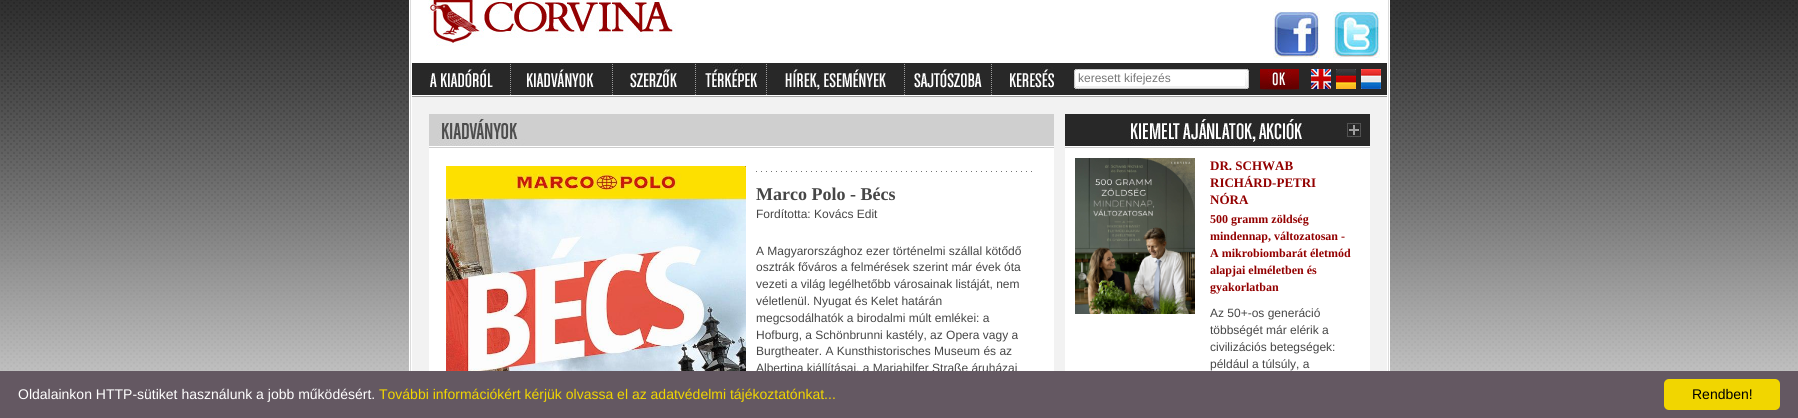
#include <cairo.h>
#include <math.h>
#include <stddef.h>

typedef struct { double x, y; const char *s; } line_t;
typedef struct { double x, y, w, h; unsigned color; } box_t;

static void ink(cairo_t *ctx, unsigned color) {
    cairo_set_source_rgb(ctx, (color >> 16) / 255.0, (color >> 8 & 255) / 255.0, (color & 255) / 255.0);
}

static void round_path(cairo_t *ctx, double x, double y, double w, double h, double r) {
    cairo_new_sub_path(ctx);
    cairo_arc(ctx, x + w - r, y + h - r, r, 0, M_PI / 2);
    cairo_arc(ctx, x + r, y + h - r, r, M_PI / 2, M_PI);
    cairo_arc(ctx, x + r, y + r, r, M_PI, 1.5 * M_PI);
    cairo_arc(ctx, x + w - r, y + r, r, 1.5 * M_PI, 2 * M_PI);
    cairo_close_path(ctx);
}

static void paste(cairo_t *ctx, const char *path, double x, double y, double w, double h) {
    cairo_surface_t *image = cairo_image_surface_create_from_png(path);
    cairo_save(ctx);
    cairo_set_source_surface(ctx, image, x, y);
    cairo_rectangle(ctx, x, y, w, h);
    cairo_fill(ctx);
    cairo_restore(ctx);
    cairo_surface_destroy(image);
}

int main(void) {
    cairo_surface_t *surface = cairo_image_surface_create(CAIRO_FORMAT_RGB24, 1798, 418);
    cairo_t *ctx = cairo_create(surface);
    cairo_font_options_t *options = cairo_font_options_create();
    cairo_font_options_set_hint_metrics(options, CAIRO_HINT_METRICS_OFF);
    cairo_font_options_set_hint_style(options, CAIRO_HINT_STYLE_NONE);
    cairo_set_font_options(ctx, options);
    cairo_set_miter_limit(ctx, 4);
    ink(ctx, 0xFFFFFF);
    cairo_paint(ctx);
    paste(ctx, "media/1.png", 0, 0, 1798, 371);
    {
        static const box_t items[] = {
            {1389, 0, 1, 371, 0xFFFFFF},
            {409, 0, 1, 371, 0xFFFFFF},
            {1388, 0, 1, 371, 0xDCDCDC},
            {410, 0, 1, 371, 0xDCDCDC},
            {1387, 0, 1, 371, 0xFFFFFF},
            {411, 0, 1, 371, 0xFFFFFF},
        };
        for (size_t i = 0; i < sizeof items / sizeof *items; i++) {
            ink(ctx, items[i].color);
            cairo_rectangle(ctx, items[i].x, items[i].y, items[i].w, items[i].h);
            cairo_fill(ctx);
        }
    }
    paste(ctx, "media/2.png", 412, 0, 295, 63);
    cairo_rectangle(ctx, 707, 0, 680, 63);
    cairo_fill(ctx);
    paste(ctx, "media/3.png", 1273, 11, 47, 47);
    paste(ctx, "media/4.png", 1333, 11, 47, 47);
    paste(ctx, "media/5.png", 412, 63, 975, 34);
    paste(ctx, "media/6.png", 429, 66, 64, 23);
    paste(ctx, "media/7.png", 510, 64, 1, 31);
    paste(ctx, "media/8.png", 527, 64, 68, 24);
    paste(ctx, "media/7.png", 612, 64, 1, 31);
    paste(ctx, "media/9.png", 630, 66, 47, 24);
    paste(ctx, "media/7.png", 695, 64, 1, 31);
    paste(ctx, "media/10.png", 705, 63, 55, 24);
    paste(ctx, "media/7.png", 766, 64, 1, 31);
    paste(ctx, "media/11.png", 785, 65, 101, 26);
    paste(ctx, "media/7.png", 904, 64, 1, 31);
    paste(ctx, "media/12.png", 914, 69, 68, 19);
    paste(ctx, "media/7.png", 991, 64, 1, 31);
    paste(ctx, "media/13.png", 1010, 63, 45, 26);
    paste(ctx, "media/14.png", 1073, 68, 177, 22);
    cairo_rectangle(ctx, 1076, 70, 169, 16);
    cairo_fill(ctx);
    cairo_select_font_face(ctx, "Liberation Sans", CAIRO_FONT_SLANT_NORMAL, CAIRO_FONT_WEIGHT_NORMAL);
    cairo_set_font_size(ctx, 12);
    ink(ctx, 0x777777);
    cairo_move_to(ctx, 1078, 82);
    cairo_show_text(ctx, "keresett kifejezés");
    paste(ctx, "media/15.png", 1260, 69, 39, 21);
    paste(ctx, "media/16.png", 1311, 69, 20, 20);
    paste(ctx, "media/17.png", 1336, 69, 20, 20);
    paste(ctx, "media/18.png", 1361, 69, 20, 20);
    ink(ctx, 0xF2F2F2);
    cairo_rectangle(ctx, 412, 97, 975, 274);
    cairo_fill(ctx);
    paste(ctx, "media/19.png", 429, 114, 625, 35);
    ink(ctx, 0xFFFFFF);
    cairo_rectangle(ctx, 429, 149, 625, 222);
    cairo_fill(ctx);
    paste(ctx, "media/20.png", 446, 166, 300, 205);
    paste(ctx, "media/21.png", 756, 171, 276, 1);
    cairo_select_font_face(ctx, "Liberation Serif", CAIRO_FONT_SLANT_NORMAL, CAIRO_FONT_WEIGHT_BOLD);
    cairo_set_font_size(ctx, 18);
    ink(ctx, 0x464646);
    cairo_move_to(ctx, 756, 200);
    cairo_show_text(ctx, "Marco Polo - Bécs");
    cairo_select_font_face(ctx, "Liberation Sans", CAIRO_FONT_SLANT_NORMAL, CAIRO_FONT_WEIGHT_NORMAL);
    cairo_set_font_size(ctx, 12);
    {
        static const line_t items[] = {
            {756, 218, "Fordította: Kovács Edit"},
            {756, 255, "A Magyarországhoz ezer történelmi szállal kötődő"},
            {756, 271, "osztrák főváros a felmérések szerint már évek óta"},
            {756, 288, "vezeti a világ legélhetőbb városainak listáját, nem"},
            {756, 305, "véletlenül. Nyugat és Kelet határán"},
            {756, 322, "megcsodálhatók a birodalmi múlt emlékei: a"},
            {756, 339, "Hofburg, a Schönbrunni kastély, az Opera vagy a"},
            {756, 355, "Burgtheater. A Kunsthistorisches Museum és az"},
            {756, 372, "Albertina kiállításai, a Mariahilfer Straße áruházai"},
        };
        for (size_t i = 0; i < sizeof items / sizeof *items; i++) {
            cairo_move_to(ctx, items[i].x, items[i].y);
            cairo_show_text(ctx, items[i].s);
        }
    }
    paste(ctx, "media/22.png", 1065, 114, 305, 34);
    ink(ctx, 0xFFFFFF);
    cairo_rectangle(ctx, 1065, 148, 305, 223);
    cairo_fill(ctx);
    paste(ctx, "media/23.png", 1075, 158, 120, 156);
    cairo_select_font_face(ctx, "Liberation Serif", CAIRO_FONT_SLANT_NORMAL, CAIRO_FONT_WEIGHT_BOLD);
    cairo_set_font_size(ctx, 13);
    ink(ctx, 0x930000);
    {
        static const line_t items[] = {
            {1210, 170, "DR. SCHWAB"},
            {1210, 187, "RICHÁRD-PETRI"},
            {1210, 204, "NÓRA"},
        };
        for (size_t i = 0; i < sizeof items / sizeof *items; i++) {
            cairo_move_to(ctx, items[i].x, items[i].y);
            cairo_show_text(ctx, items[i].s);
        }
    }
    cairo_set_font_size(ctx, 12);
    {
        static const line_t items[] = {
            {1210, 223, "500 gramm zöldség"},
            {1210, 240, "mindennap, változatosan -"},
            {1210, 257, "A mikrobiombarát életmód"},
            {1210, 274, "alapjai elméletben és"},
            {1210, 291, "gyakorlatban"},
        };
        for (size_t i = 0; i < sizeof items / sizeof *items; i++) {
            cairo_move_to(ctx, items[i].x, items[i].y);
            cairo_show_text(ctx, items[i].s);
        }
    }
    cairo_select_font_face(ctx, "Liberation Sans", CAIRO_FONT_SLANT_NORMAL, CAIRO_FONT_WEIGHT_NORMAL);
    ink(ctx, 0x464646);
    {
        static const line_t items[] = {
            {1210, 317, "Az 50+-os generáció"},
            {1210, 334, "többségét már elérik a"},
            {1210, 351, "civilizációs betegségek:"},
            {1210, 368, "például a túlsúly, a"},
        };
        for (size_t i = 0; i < sizeof items / sizeof *items; i++) {
            cairo_move_to(ctx, items[i].x, items[i].y);
            cairo_show_text(ctx, items[i].s);
        }
    }
    ink(ctx, 0x645862);
    cairo_rectangle(ctx, 0, 371, 1798, 47);
    cairo_fill(ctx);
    cairo_set_font_size(ctx, 14);
    ink(ctx, 0xFFFFFF);
    cairo_move_to(ctx, 18, 399);
    cairo_show_text(ctx, "Oldalainkon HTTP-sütiket használunk a jobb működésért.");
    ink(ctx, 0xF1D600);
    cairo_move_to(ctx, 379, 399);
    cairo_show_text(ctx, "További információkért kérjük olvassa el az adatvédelmi tájékoztatónkat...");
    round_path(ctx, 1664, 379, 116, 31, 5);
    cairo_fill(ctx);
    ink(ctx, 0x000000);
    cairo_move_to(ctx, 1692, 399);
    cairo_show_text(ctx, "Rendben!");
    cairo_surface_write_to_png(surface, "image.png");
    cairo_font_options_destroy(options);
    cairo_destroy(ctx);
    cairo_surface_destroy(surface);
    return 0;
}
